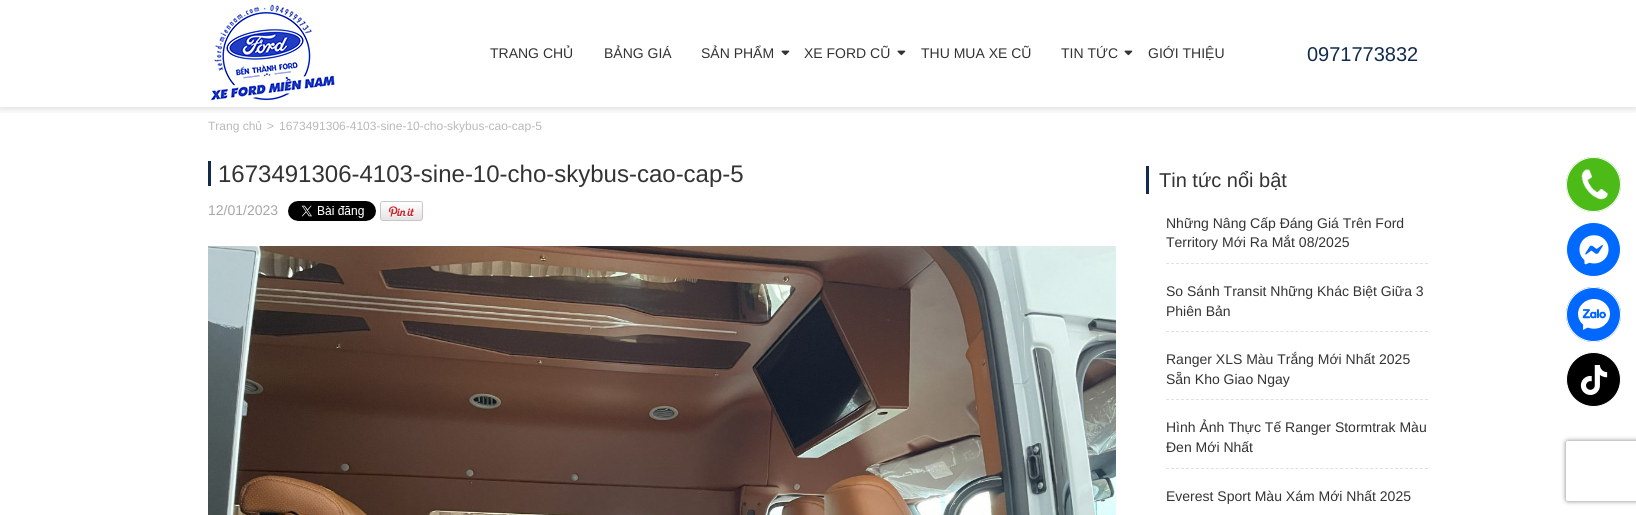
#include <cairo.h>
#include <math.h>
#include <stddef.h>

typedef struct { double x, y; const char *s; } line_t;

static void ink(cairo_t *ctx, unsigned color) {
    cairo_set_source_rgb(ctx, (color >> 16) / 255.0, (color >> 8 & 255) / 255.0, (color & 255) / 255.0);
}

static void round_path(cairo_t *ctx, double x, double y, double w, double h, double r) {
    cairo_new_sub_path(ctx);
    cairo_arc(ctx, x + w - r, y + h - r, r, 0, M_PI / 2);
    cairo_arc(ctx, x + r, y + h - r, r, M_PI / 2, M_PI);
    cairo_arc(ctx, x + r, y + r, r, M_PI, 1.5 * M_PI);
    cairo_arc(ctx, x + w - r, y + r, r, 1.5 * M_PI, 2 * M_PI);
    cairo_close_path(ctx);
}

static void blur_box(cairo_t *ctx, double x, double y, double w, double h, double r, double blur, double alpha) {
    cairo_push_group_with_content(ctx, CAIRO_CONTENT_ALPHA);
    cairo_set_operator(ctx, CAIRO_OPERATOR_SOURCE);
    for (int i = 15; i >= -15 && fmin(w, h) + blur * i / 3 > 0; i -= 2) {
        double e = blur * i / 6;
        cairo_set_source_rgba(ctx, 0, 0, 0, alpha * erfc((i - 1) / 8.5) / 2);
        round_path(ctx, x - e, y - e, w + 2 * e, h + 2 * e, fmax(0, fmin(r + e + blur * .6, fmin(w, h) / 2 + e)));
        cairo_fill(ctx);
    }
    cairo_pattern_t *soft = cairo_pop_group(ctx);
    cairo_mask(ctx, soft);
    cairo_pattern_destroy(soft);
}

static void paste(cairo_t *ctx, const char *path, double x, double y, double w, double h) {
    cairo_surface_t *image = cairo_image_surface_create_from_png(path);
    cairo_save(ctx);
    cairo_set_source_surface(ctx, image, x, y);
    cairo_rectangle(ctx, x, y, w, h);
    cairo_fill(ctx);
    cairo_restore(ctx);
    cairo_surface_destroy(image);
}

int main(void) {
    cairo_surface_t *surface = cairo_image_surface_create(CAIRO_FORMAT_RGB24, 1636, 515);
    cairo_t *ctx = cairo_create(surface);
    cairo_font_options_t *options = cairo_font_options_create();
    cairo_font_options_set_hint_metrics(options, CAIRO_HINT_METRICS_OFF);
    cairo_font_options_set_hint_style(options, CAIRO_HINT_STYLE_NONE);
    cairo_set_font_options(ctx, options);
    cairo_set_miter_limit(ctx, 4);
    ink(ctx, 0xFFFFFF);
    cairo_paint(ctx);
    cairo_save(ctx);
    cairo_rectangle(ctx, 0, 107, 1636, 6);
    cairo_clip(ctx);
    ink(ctx, 0x000000);
    blur_box(ctx, 0, 0, 1636, 107, 0, 5, 0.2);
    cairo_restore(ctx);
    paste(ctx, "media/1.png", 210, 1, 125, 101);
    cairo_select_font_face(ctx, "Liberation Sans", CAIRO_FONT_SLANT_NORMAL, CAIRO_FONT_WEIGHT_NORMAL);
    cairo_set_font_size(ctx, 14);
    ink(ctx, 0x333333);
    {
        static const line_t items[] = {
            {490, 58, "TRANG CHỦ"},
            {604, 58, "BẢNG GIÁ"},
            {701, 58, "SẢN PHẨM"},
        };
        for (size_t i = 0; i < sizeof items / sizeof *items; i++) {
            cairo_move_to(ctx, items[i].x, items[i].y);
            cairo_show_text(ctx, items[i].s);
        }
    }
    paste(ctx, "media/2.png", 781, 50, 9, 6);
    cairo_move_to(ctx, 804, 58);
    cairo_show_text(ctx, "XE FORD CŨ");
    paste(ctx, "media/2.png", 897, 50, 9, 6);
    cairo_move_to(ctx, 921, 58);
    cairo_show_text(ctx, "THU MUA XE CŨ");
    cairo_move_to(ctx, 1061, 58);
    cairo_show_text(ctx, "TIN TỨC");
    paste(ctx, "media/2.png", 1124, 50, 9, 6);
    cairo_move_to(ctx, 1148, 58);
    cairo_show_text(ctx, "GIỚI THIỆU");
    cairo_set_font_size(ctx, 20);
    ink(ctx, 0x102B4E);
    cairo_move_to(ctx, 1307, 61);
    cairo_show_text(ctx, "0971773832");
    cairo_set_font_size(ctx, 12);
    ink(ctx, 0xB9B9B9);
    {
        static const line_t items[] = {
            {208, 130, "Trang chủ"},
            {267, 130, ">"},
            {279, 130, "1673491306-4103-sine-10-cho-skybus-cao-cap-5"},
        };
        for (size_t i = 0; i < sizeof items / sizeof *items; i++) {
            cairo_move_to(ctx, items[i].x, items[i].y);
            cairo_show_text(ctx, items[i].s);
        }
    }
    ink(ctx, 0x102B4E);
    cairo_rectangle(ctx, 208, 161, 3, 25);
    cairo_fill(ctx);
    cairo_set_font_size(ctx, 24);
    ink(ctx, 0x333333);
    cairo_move_to(ctx, 218, 182);
    cairo_show_text(ctx, "1673491306-4103-sine-10-cho-skybus-cao-cap-5");
    cairo_set_font_size(ctx, 14);
    ink(ctx, 0xA7A7A7);
    cairo_move_to(ctx, 208, 215);
    cairo_show_text(ctx, "12/01/2023");
    paste(ctx, "media/3.png", 288, 201, 88, 20);
    paste(ctx, "media/4.png", 380, 201, 43, 20);
    paste(ctx, "media/5.png", 208, 246, 908, 269);
    ink(ctx, 0x102B4E);
    cairo_rectangle(ctx, 1146, 166, 3, 28);
    cairo_fill(ctx);
    cairo_set_font_size(ctx, 20);
    ink(ctx, 0x333333);
    cairo_move_to(ctx, 1159, 187);
    cairo_show_text(ctx, "Tin tức nổi bật");
    cairo_new_path(ctx);
    cairo_move_to(ctx, 1166, 263.5);
    cairo_line_to(ctx, 1428, 263.5);
    ink(ctx, 0xE1E1E1);
    cairo_set_line_width(ctx, 1);
    cairo_set_dash(ctx, (double[]){3, 1.98}, 2, 0);
    cairo_stroke(ctx);
    cairo_set_font_size(ctx, 14);
    ink(ctx, 0x333333);
    cairo_move_to(ctx, 1166, 228);
    cairo_show_text(ctx, "Những Nâng Cấp Đáng Giá Trên Ford");
    cairo_move_to(ctx, 1166, 247);
    cairo_show_text(ctx, "Territory Mới Ra Mắt 08/2025");
    cairo_new_path(ctx);
    cairo_move_to(ctx, 1166, 331.5);
    cairo_line_to(ctx, 1428, 331.5);
    ink(ctx, 0xE1E1E1);
    cairo_stroke(ctx);
    ink(ctx, 0x333333);
    cairo_move_to(ctx, 1166, 296);
    cairo_show_text(ctx, "So Sánh Transit Những Khác Biệt Giữa 3");
    cairo_move_to(ctx, 1166, 316);
    cairo_show_text(ctx, "Phiên Bản");
    cairo_new_path(ctx);
    cairo_move_to(ctx, 1166, 399.5);
    cairo_line_to(ctx, 1428, 399.5);
    ink(ctx, 0xE1E1E1);
    cairo_stroke(ctx);
    ink(ctx, 0x333333);
    cairo_move_to(ctx, 1166, 364);
    cairo_show_text(ctx, "Ranger XLS Màu Trắng Mới Nhất 2025");
    cairo_move_to(ctx, 1166, 384);
    cairo_show_text(ctx, "Sẵn Kho Giao Ngay");
    cairo_new_path(ctx);
    cairo_move_to(ctx, 1166, 468.5);
    cairo_line_to(ctx, 1428, 468.5);
    ink(ctx, 0xE1E1E1);
    cairo_stroke(ctx);
    ink(ctx, 0x333333);
    {
        static const line_t items[] = {
            {1166, 432, "Hình Ảnh Thực Tế Ranger Stormtrak Màu"},
            {1166, 452, "Đen Mới Nhất"},
            {1166, 501, "Everest Sport Màu Xám Mới Nhất 2025"},
        };
        for (size_t i = 0; i < sizeof items / sizeof *items; i++) {
            cairo_move_to(ctx, items[i].x, items[i].y);
            cairo_show_text(ctx, items[i].s);
        }
    }
    ink(ctx, 0x4CBB17);
    cairo_new_path(ctx);
    cairo_arc(ctx, 1593.5, 184.5, 27.5, 0, 2 * M_PI);
    cairo_fill(ctx);
    paste(ctx, "media/6.png", 1581, 169, 27, 31);
    cairo_arc(ctx, 1593.5, 184.5, 27, 0, 2 * M_PI);
    ink(ctx, 0xFFFFFF);
    cairo_set_dash(ctx, NULL, 0, 0);
    cairo_stroke(ctx);
    ink(ctx, 0x006AFF);
    cairo_arc(ctx, 1593.5, 249.5, 27, 0, 2 * M_PI);
    cairo_fill_preserve(ctx);
    ink(ctx, 0xFFFFFF);
    cairo_stroke(ctx);
    paste(ctx, "media/7.png", 1579, 235, 30, 30);
    ink(ctx, 0x0068FF);
    cairo_arc(ctx, 1593.5, 314.5, 27.5, 0, 2 * M_PI);
    cairo_fill(ctx);
    paste(ctx, "media/8.png", 1578, 299, 32, 31);
    cairo_arc(ctx, 1593.5, 314.5, 27, 0, 2 * M_PI);
    ink(ctx, 0xFFFFFF);
    cairo_stroke(ctx);
    ink(ctx, 0x000000);
    cairo_arc(ctx, 1593.5, 379.5, 27, 0, 2 * M_PI);
    cairo_fill_preserve(ctx);
    ink(ctx, 0xFFFFFF);
    cairo_stroke(ctx);
    paste(ctx, "media/9.png", 1580, 365, 28, 30);
    cairo_save(ctx);
    cairo_set_fill_rule(ctx, CAIRO_FILL_RULE_EVEN_ODD);
    cairo_new_path(ctx);
    cairo_move_to(ctx, 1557, 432);
    cairo_line_to(ctx, 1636, 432);
    cairo_line_to(ctx, 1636, 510);
    cairo_line_to(ctx, 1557, 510);
    cairo_close_path(ctx);
    cairo_move_to(ctx, 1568, 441);
    cairo_line_to(ctx, 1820, 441);
    cairo_curve_to(ctx, 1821, 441, 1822, 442, 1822, 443);
    cairo_line_to(ctx, 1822, 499);
    cairo_curve_to(ctx, 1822, 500, 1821, 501, 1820, 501);
    cairo_line_to(ctx, 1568, 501);
    cairo_curve_to(ctx, 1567, 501, 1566, 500, 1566, 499);
    cairo_line_to(ctx, 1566, 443);
    cairo_curve_to(ctx, 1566, 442, 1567, 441, 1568, 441);
    cairo_close_path(ctx);
    cairo_clip(ctx);
    ink(ctx, 0x808080);
    blur_box(ctx, 1566, 441, 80, 60, 2, 2.5, 1);
    cairo_restore(ctx);
    cairo_surface_write_to_png(surface, "image.png");
    cairo_font_options_destroy(options);
    cairo_destroy(ctx);
    cairo_surface_destroy(surface);
    return 0;
}
